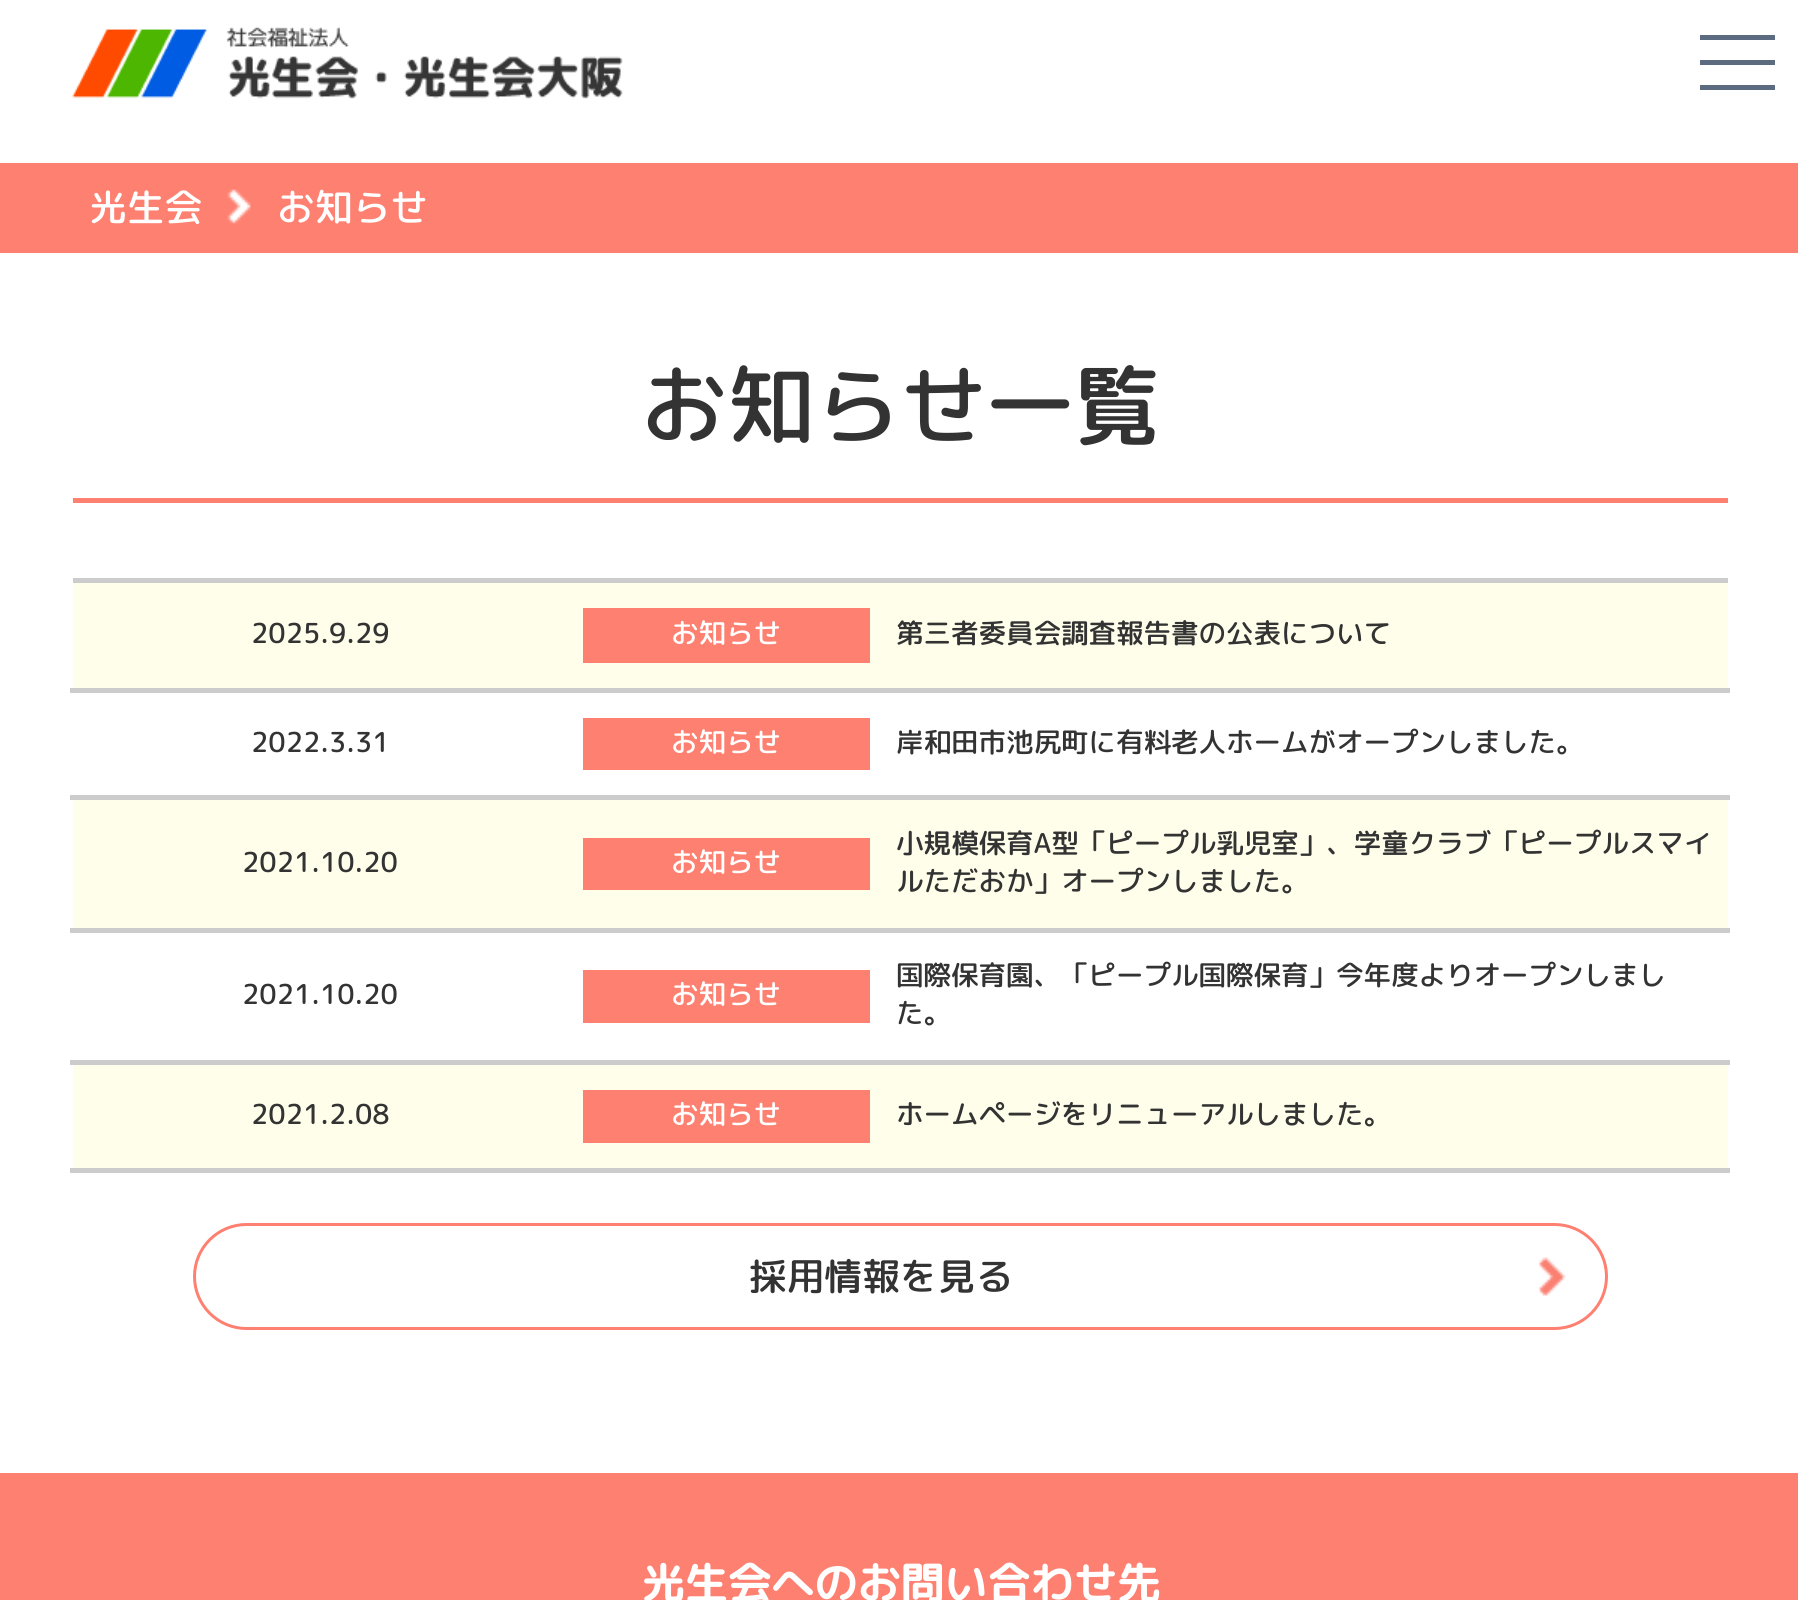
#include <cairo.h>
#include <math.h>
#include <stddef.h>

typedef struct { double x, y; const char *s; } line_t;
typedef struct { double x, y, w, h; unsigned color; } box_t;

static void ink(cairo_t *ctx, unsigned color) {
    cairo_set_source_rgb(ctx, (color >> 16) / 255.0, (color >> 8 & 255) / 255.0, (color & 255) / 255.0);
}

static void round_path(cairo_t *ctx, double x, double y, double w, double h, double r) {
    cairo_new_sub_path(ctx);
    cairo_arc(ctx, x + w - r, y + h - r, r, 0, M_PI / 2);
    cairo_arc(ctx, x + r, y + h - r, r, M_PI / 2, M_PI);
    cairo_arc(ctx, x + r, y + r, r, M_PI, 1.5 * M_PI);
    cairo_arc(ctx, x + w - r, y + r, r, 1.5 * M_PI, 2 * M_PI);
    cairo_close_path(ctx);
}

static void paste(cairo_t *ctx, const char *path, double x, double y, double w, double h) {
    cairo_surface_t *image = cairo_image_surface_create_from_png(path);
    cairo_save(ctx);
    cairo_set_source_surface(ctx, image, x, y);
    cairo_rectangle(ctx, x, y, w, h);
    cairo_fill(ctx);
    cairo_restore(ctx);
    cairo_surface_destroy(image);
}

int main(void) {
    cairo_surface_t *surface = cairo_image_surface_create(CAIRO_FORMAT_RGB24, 1798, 1600);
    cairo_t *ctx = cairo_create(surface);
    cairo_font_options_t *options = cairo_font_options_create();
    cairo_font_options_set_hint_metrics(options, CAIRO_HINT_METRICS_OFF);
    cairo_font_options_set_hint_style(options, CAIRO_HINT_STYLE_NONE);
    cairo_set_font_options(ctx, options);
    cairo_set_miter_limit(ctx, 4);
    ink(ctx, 0xFFFFFF);
    cairo_paint(ctx);
    paste(ctx, "media/1.png", 72, 26, 551, 73);
    {
        static const box_t items[] = {
            {1700, 35, 75, 5, 0x5C6B80},
            {1700, 60, 75, 5, 0x5C6B80},
            {1700, 85, 75, 5, 0x5C6B80},
            {0, 163, 1798, 90, 0xFE8071},
        };
        for (size_t i = 0; i < sizeof items / sizeof *items; i++) {
            ink(ctx, items[i].color);
            cairo_rectangle(ctx, items[i].x, items[i].y, items[i].w, items[i].h);
            cairo_fill(ctx);
        }
    }
    paste(ctx, "media/2.png", 227, 189, 24, 35);
    cairo_select_font_face(ctx, "Rounded Mplus 1c Medium", CAIRO_FONT_SLANT_NORMAL, CAIRO_FONT_WEIGHT_NORMAL);
    cairo_set_font_size(ctx, 37.75);
    ink(ctx, 0xFFFFFF);
    cairo_move_to(ctx, 89, 221);
    cairo_show_text(ctx, "光生会");
    cairo_move_to(ctx, 277, 221);
    cairo_show_text(ctx, "お知らせ");
    ink(ctx, 0xFE8071);
    cairo_rectangle(ctx, 73, 498, 1655, 5);
    cairo_fill(ctx);
    cairo_set_font_size(ctx, 86.5);
    ink(ctx, 0x333333);
    cairo_move_to(ctx, 641, 437);
    cairo_show_text(ctx, "お知らせ一覧");
    ink(ctx, 0xCCCCCC);
    cairo_rectangle(ctx, 73, 578, 1655, 5);
    cairo_fill(ctx);
    ink(ctx, 0xFFFEEA);
    cairo_rectangle(ctx, 73, 583, 1655, 105);
    cairo_fill(ctx);
    cairo_set_font_size(ctx, 27.5);
    ink(ctx, 0x333333);
    cairo_move_to(ctx, 251, 643);
    cairo_show_text(ctx, "2025.9.29");
    ink(ctx, 0xFE8071);
    cairo_rectangle(ctx, 583, 608, 287, 55);
    cairo_fill(ctx);
    ink(ctx, 0xFFFFFF);
    cairo_move_to(ctx, 671, 643);
    cairo_show_text(ctx, "お知らせ");
    ink(ctx, 0xCCCCCC);
    cairo_rectangle(ctx, 70, 688, 1660, 5);
    cairo_fill(ctx);
    ink(ctx, 0x333333);
    cairo_move_to(ctx, 896, 643);
    cairo_show_text(ctx, "第三者委員会調査報告書の公表について");
    cairo_move_to(ctx, 251, 752);
    cairo_show_text(ctx, "2022.3.31");
    ink(ctx, 0xFE8071);
    cairo_rectangle(ctx, 583, 718, 287, 52);
    cairo_fill(ctx);
    ink(ctx, 0xFFFFFF);
    cairo_move_to(ctx, 671, 752);
    cairo_show_text(ctx, "お知らせ");
    ink(ctx, 0xCCCCCC);
    cairo_rectangle(ctx, 70, 795, 1660, 5);
    cairo_fill(ctx);
    ink(ctx, 0x333333);
    cairo_move_to(ctx, 896, 752);
    cairo_show_text(ctx, "岸和田市池尻町に有料老人ホームがオープンしました。");
    ink(ctx, 0xFFFEEA);
    cairo_rectangle(ctx, 73, 800, 1655, 128);
    cairo_fill(ctx);
    ink(ctx, 0x333333);
    cairo_move_to(ctx, 242, 872);
    cairo_show_text(ctx, "2021.10.20");
    ink(ctx, 0xFE8071);
    cairo_rectangle(ctx, 583, 838, 287, 52);
    cairo_fill(ctx);
    ink(ctx, 0xFFFFFF);
    cairo_move_to(ctx, 671, 872);
    cairo_show_text(ctx, "お知らせ");
    ink(ctx, 0xCCCCCC);
    cairo_rectangle(ctx, 70, 928, 1660, 5);
    cairo_fill(ctx);
    ink(ctx, 0x333333);
    {
        static const line_t items[] = {
            {896, 853, "小規模保育A型「ピープル乳児室」、学童クラブ「ピープルスマイ"},
            {896, 891, "ルただおか」オープンしました。"},
            {242, 1004, "2021.10.20"},
        };
        for (size_t i = 0; i < sizeof items / sizeof *items; i++) {
            cairo_move_to(ctx, items[i].x, items[i].y);
            cairo_show_text(ctx, items[i].s);
        }
    }
    ink(ctx, 0xFE8071);
    cairo_rectangle(ctx, 583, 970, 287, 53);
    cairo_fill(ctx);
    ink(ctx, 0xFFFFFF);
    cairo_move_to(ctx, 671, 1004);
    cairo_show_text(ctx, "お知らせ");
    ink(ctx, 0xCCCCCC);
    cairo_rectangle(ctx, 70, 1060, 1660, 5);
    cairo_fill(ctx);
    ink(ctx, 0x333333);
    cairo_move_to(ctx, 896, 985);
    cairo_show_text(ctx, "国際保育園、「ピープル国際保育」今年度よりオープンしまし");
    cairo_move_to(ctx, 896, 1023);
    cairo_show_text(ctx, "た。");
    ink(ctx, 0xFFFEEA);
    cairo_rectangle(ctx, 73, 1065, 1655, 103);
    cairo_fill(ctx);
    ink(ctx, 0x333333);
    cairo_move_to(ctx, 251, 1124);
    cairo_show_text(ctx, "2021.2.08");
    ink(ctx, 0xFE8071);
    cairo_rectangle(ctx, 583, 1090, 287, 53);
    cairo_fill(ctx);
    ink(ctx, 0xFFFFFF);
    cairo_move_to(ctx, 671, 1124);
    cairo_show_text(ctx, "お知らせ");
    ink(ctx, 0xCCCCCC);
    cairo_rectangle(ctx, 70, 1168, 1660, 5);
    cairo_fill(ctx);
    ink(ctx, 0x333333);
    cairo_move_to(ctx, 896, 1124);
    cairo_show_text(ctx, "ホームページをリニューアルしました。");
    paste(ctx, "media/3.png", 1537, 1257, 29, 39);
    round_path(ctx, 194.5, 1224.5, 1412, 104, 52);
    ink(ctx, 0xFE8071);
    cairo_set_line_width(ctx, 3);
    cairo_stroke(ctx);
    cairo_set_font_size(ctx, 37.75);
    ink(ctx, 0x333333);
    cairo_move_to(ctx, 749, 1290);
    cairo_show_text(ctx, "採用情報を見る");
    ink(ctx, 0xFE8071);
    cairo_rectangle(ctx, 0, 1473, 1798, 127);
    cairo_fill(ctx);
    cairo_select_font_face(ctx, "Rounded Mplus 1c", CAIRO_FONT_SLANT_NORMAL, CAIRO_FONT_WEIGHT_BOLD);
    cairo_set_font_size(ctx, 43.25);
    ink(ctx, 0xFFFFFF);
    cairo_move_to(ctx, 641, 1599);
    cairo_show_text(ctx, "光生会へのお問い合わせ先");
    cairo_surface_write_to_png(surface, "image.png");
    cairo_font_options_destroy(options);
    cairo_destroy(ctx);
    cairo_surface_destroy(surface);
    return 0;
}
